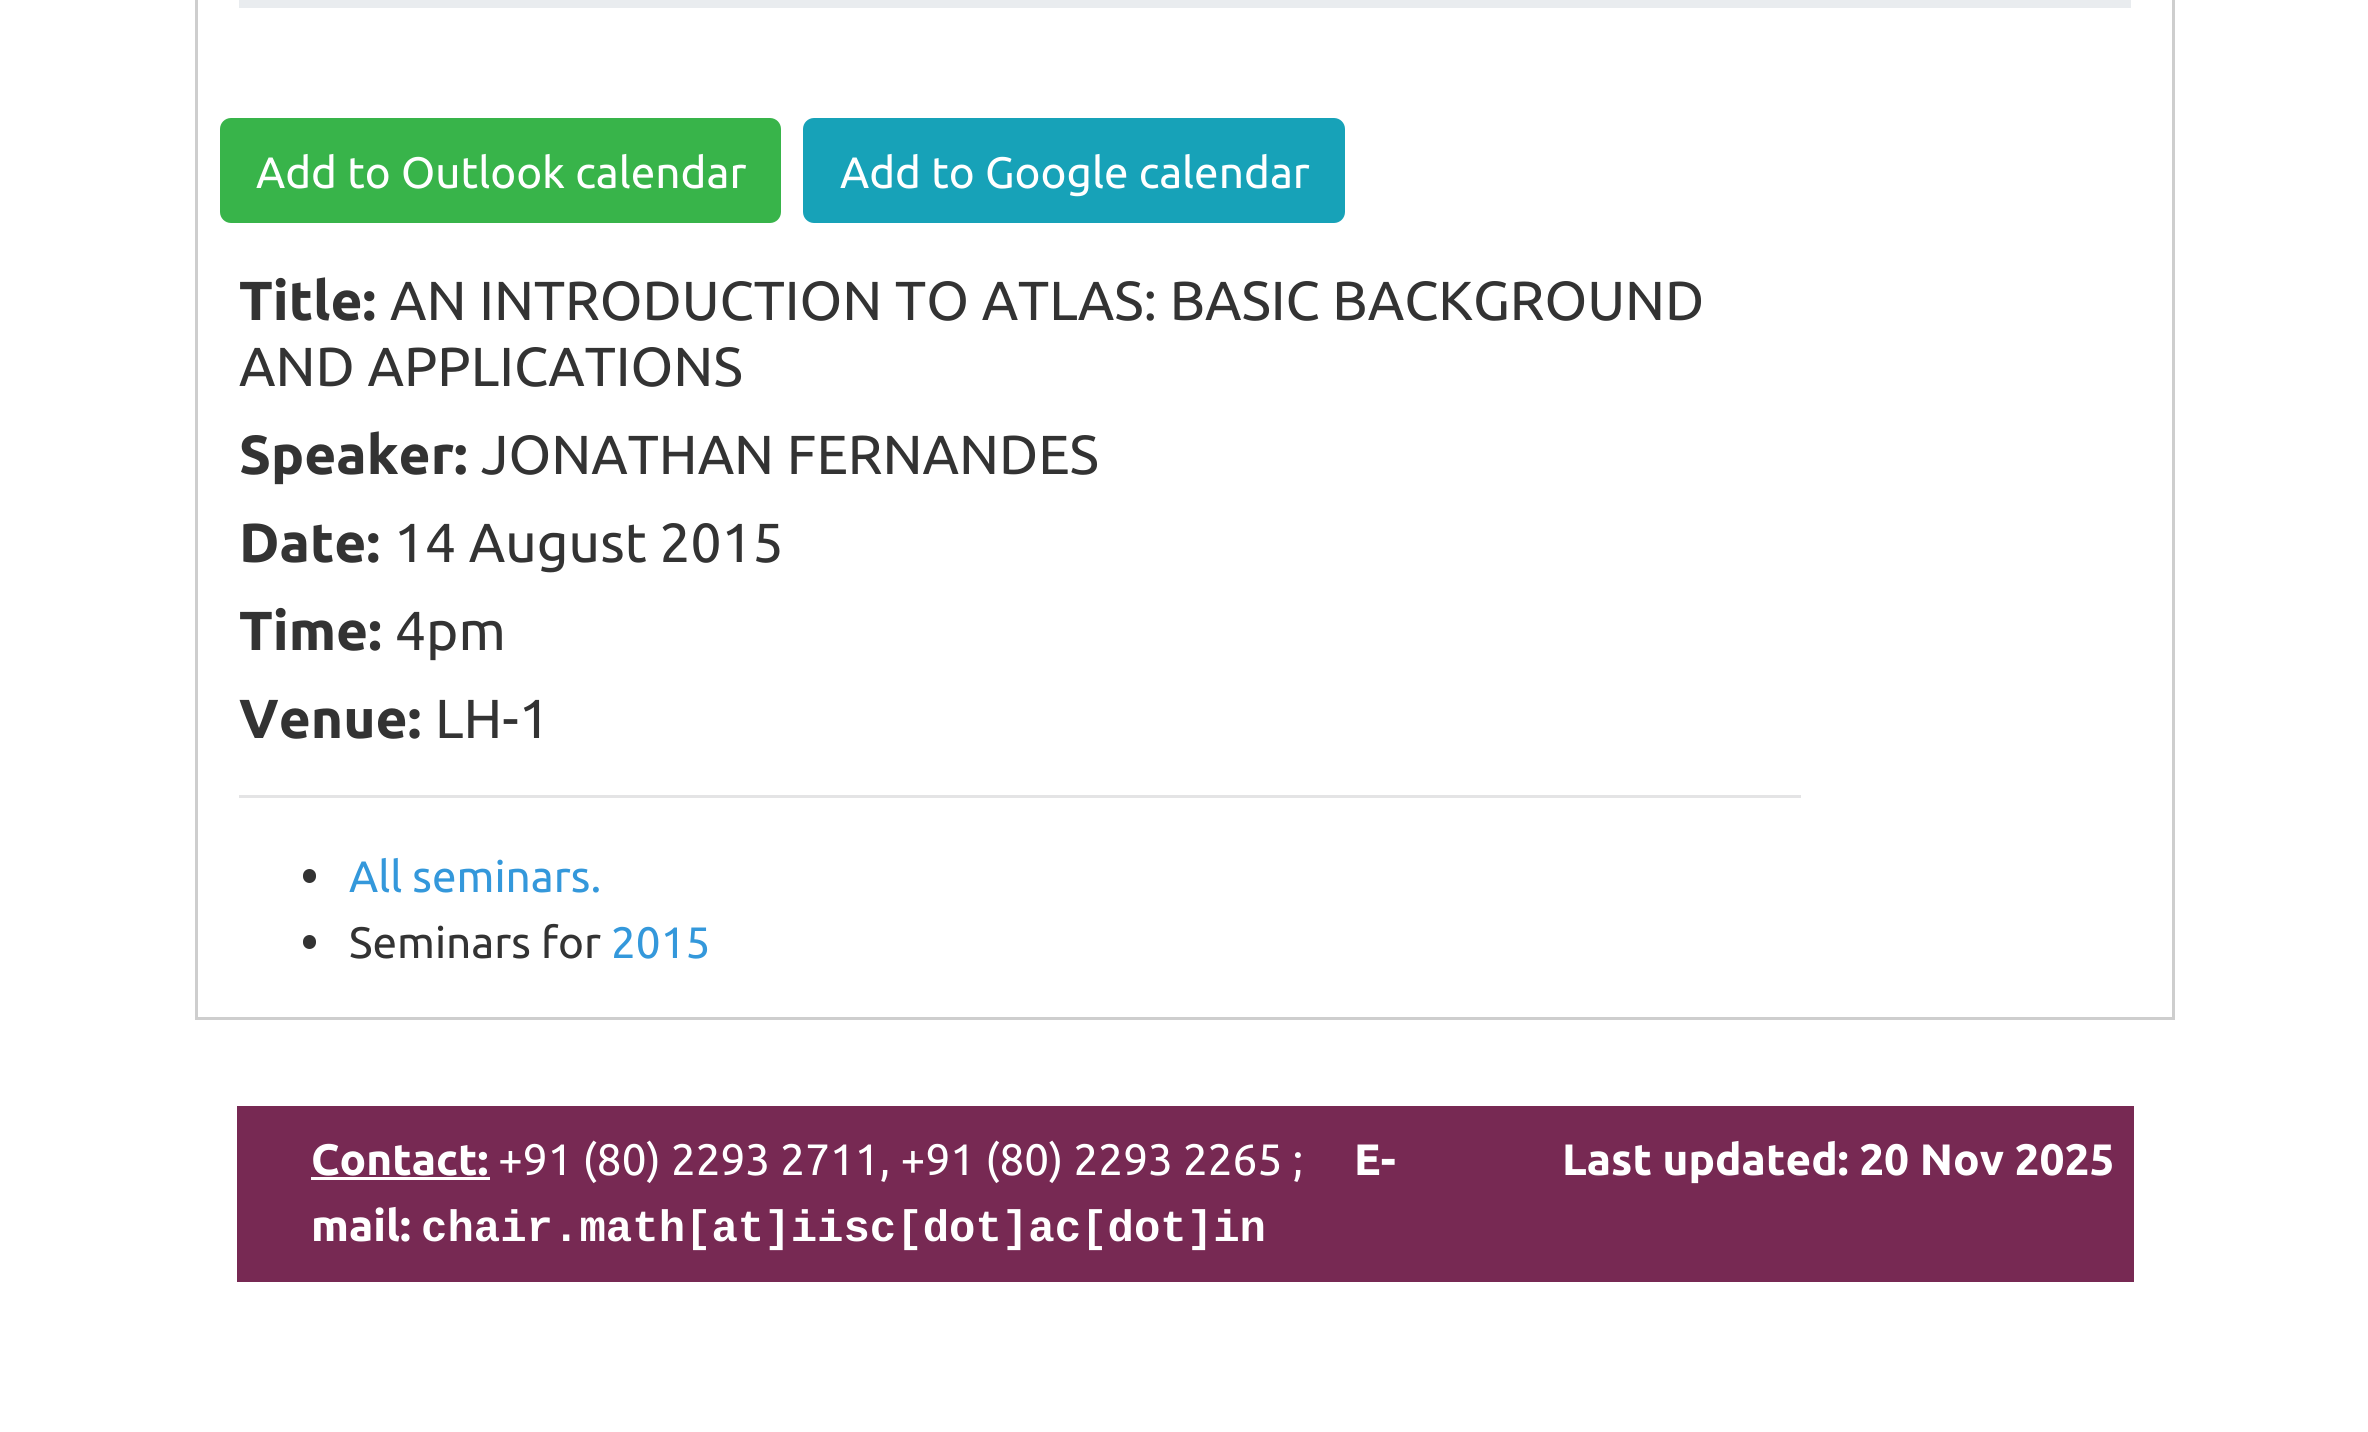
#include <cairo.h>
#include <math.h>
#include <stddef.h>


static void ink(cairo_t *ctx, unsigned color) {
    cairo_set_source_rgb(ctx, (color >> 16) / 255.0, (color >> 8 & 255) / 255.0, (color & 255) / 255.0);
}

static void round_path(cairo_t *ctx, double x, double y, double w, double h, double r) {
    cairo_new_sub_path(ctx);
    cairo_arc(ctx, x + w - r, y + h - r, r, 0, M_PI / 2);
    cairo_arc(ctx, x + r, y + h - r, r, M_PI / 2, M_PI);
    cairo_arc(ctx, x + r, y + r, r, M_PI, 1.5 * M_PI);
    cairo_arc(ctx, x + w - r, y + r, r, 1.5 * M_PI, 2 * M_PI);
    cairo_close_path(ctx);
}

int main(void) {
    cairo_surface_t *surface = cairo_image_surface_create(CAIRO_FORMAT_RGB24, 2368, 1432);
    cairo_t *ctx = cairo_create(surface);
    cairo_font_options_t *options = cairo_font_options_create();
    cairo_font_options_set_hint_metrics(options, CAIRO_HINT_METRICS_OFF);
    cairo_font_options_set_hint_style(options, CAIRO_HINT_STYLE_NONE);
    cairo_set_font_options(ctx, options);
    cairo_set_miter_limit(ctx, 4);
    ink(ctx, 0xFFFFFF);
    cairo_paint(ctx);
    cairo_rectangle(ctx, 196.5, -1.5, 1977, 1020);
    ink(ctx, 0xCECECE);
    cairo_set_line_width(ctx, 3);
    cairo_stroke(ctx);
    ink(ctx, 0xE9ECEF);
    cairo_rectangle(ctx, 239, 0, 1892, 8);
    cairo_fill(ctx);
    ink(ctx, 0x38B44A);
    round_path(ctx, 221.5, 119.5, 558, 102, 9.5);
    cairo_fill_preserve(ctx);
    cairo_stroke(ctx);
    cairo_select_font_face(ctx, "Ubuntu", CAIRO_FONT_SLANT_NORMAL, CAIRO_FONT_WEIGHT_NORMAL);
    cairo_set_font_size(ctx, 44);
    ink(ctx, 0xFFFFFF);
    cairo_move_to(ctx, 256, 188);
    cairo_show_text(ctx, "Add to Outlook calendar");
    ink(ctx, 0x17A2B8);
    round_path(ctx, 804.5, 119.5, 539, 102, 9.5);
    cairo_fill_preserve(ctx);
    cairo_stroke(ctx);
    ink(ctx, 0xFFFFFF);
    cairo_move_to(ctx, 840, 188);
    cairo_show_text(ctx, "Add to Google calendar");
    cairo_select_font_face(ctx, "Ubuntu", CAIRO_FONT_SLANT_NORMAL, CAIRO_FONT_WEIGHT_BOLD);
    cairo_set_font_size(ctx, 55);
    ink(ctx, 0x333333);
    cairo_move_to(ctx, 239, 320);
    cairo_show_text(ctx, "Title:");
    cairo_select_font_face(ctx, "Ubuntu", CAIRO_FONT_SLANT_NORMAL, CAIRO_FONT_WEIGHT_NORMAL);
    cairo_move_to(ctx, 390, 320);
    cairo_show_text(ctx, "AN INTRODUCTION TO ATLAS: BASIC BACKGROUND");
    cairo_move_to(ctx, 239, 386);
    cairo_show_text(ctx, "AND APPLICATIONS");
    cairo_select_font_face(ctx, "Ubuntu", CAIRO_FONT_SLANT_NORMAL, CAIRO_FONT_WEIGHT_BOLD);
    cairo_move_to(ctx, 239, 474);
    cairo_show_text(ctx, "Speaker:");
    cairo_select_font_face(ctx, "Ubuntu", CAIRO_FONT_SLANT_NORMAL, CAIRO_FONT_WEIGHT_NORMAL);
    cairo_move_to(ctx, 481, 474);
    cairo_show_text(ctx, "JONATHAN FERNANDES");
    cairo_select_font_face(ctx, "Ubuntu", CAIRO_FONT_SLANT_NORMAL, CAIRO_FONT_WEIGHT_BOLD);
    cairo_move_to(ctx, 239, 562);
    cairo_show_text(ctx, "Date:");
    cairo_select_font_face(ctx, "Ubuntu", CAIRO_FONT_SLANT_NORMAL, CAIRO_FONT_WEIGHT_NORMAL);
    cairo_move_to(ctx, 394, 562);
    cairo_show_text(ctx, "14 August 2015");
    cairo_select_font_face(ctx, "Ubuntu", CAIRO_FONT_SLANT_NORMAL, CAIRO_FONT_WEIGHT_BOLD);
    cairo_move_to(ctx, 239, 650);
    cairo_show_text(ctx, "Time:");
    cairo_select_font_face(ctx, "Ubuntu", CAIRO_FONT_SLANT_NORMAL, CAIRO_FONT_WEIGHT_NORMAL);
    cairo_move_to(ctx, 395, 650);
    cairo_show_text(ctx, "4pm");
    cairo_select_font_face(ctx, "Ubuntu", CAIRO_FONT_SLANT_NORMAL, CAIRO_FONT_WEIGHT_BOLD);
    cairo_move_to(ctx, 239, 738);
    cairo_show_text(ctx, "Venue:");
    cairo_select_font_face(ctx, "Ubuntu", CAIRO_FONT_SLANT_NORMAL, CAIRO_FONT_WEIGHT_NORMAL);
    cairo_move_to(ctx, 435, 738);
    cairo_show_text(ctx, "LH-1");
    ink(ctx, 0xE4E4E5);
    cairo_rectangle(ctx, 239, 795, 1562, 3);
    cairo_fill(ctx);
    ink(ctx, 0x333333);
    round_path(ctx, 303, 869, 13, 14, 6.5);
    cairo_fill(ctx);
    cairo_set_font_size(ctx, 44);
    ink(ctx, 0x3498DB);
    cairo_move_to(ctx, 349, 892);
    cairo_show_text(ctx, "All seminars.");
    ink(ctx, 0x333333);
    round_path(ctx, 303, 935, 13, 14, 6.5);
    cairo_fill(ctx);
    cairo_move_to(ctx, 349, 958);
    cairo_show_text(ctx, "Seminars for");
    ink(ctx, 0x3498DB);
    cairo_move_to(ctx, 611, 958);
    cairo_show_text(ctx, "2015");
    ink(ctx, 0x772953);
    cairo_rectangle(ctx, 237, 1106, 1897, 176);
    cairo_fill(ctx);
    cairo_select_font_face(ctx, "Ubuntu", CAIRO_FONT_SLANT_NORMAL, CAIRO_FONT_WEIGHT_BOLD);
    ink(ctx, 0xFFFFFF);
    cairo_move_to(ctx, 311, 1175);
    cairo_show_text(ctx, "Contact:");
    cairo_rectangle(ctx, 311, 1177, 179, 3);
    cairo_fill(ctx);
    cairo_select_font_face(ctx, "Ubuntu", CAIRO_FONT_SLANT_NORMAL, CAIRO_FONT_WEIGHT_NORMAL);
    cairo_move_to(ctx, 498, 1175);
    cairo_show_text(ctx, "+91 (80) 2293 2711, +91 (80) 2293 2265 ;");
    cairo_select_font_face(ctx, "Ubuntu", CAIRO_FONT_SLANT_NORMAL, CAIRO_FONT_WEIGHT_BOLD);
    cairo_move_to(ctx, 1354, 1175);
    cairo_show_text(ctx, "E-");
    cairo_move_to(ctx, 311, 1241);
    cairo_show_text(ctx, "mail:");
    cairo_select_font_face(ctx, "Liberation Mono", CAIRO_FONT_SLANT_NORMAL, CAIRO_FONT_WEIGHT_BOLD);
    cairo_move_to(ctx, 421, 1241);
    cairo_show_text(ctx, "chair.math[at]iisc[dot]ac[dot]in");
    cairo_select_font_face(ctx, "Ubuntu", CAIRO_FONT_SLANT_NORMAL, CAIRO_FONT_WEIGHT_BOLD);
    cairo_move_to(ctx, 1562, 1175);
    cairo_show_text(ctx, "Last updated: 20 Nov 2025");
    cairo_surface_write_to_png(surface, "image.png");
    cairo_font_options_destroy(options);
    cairo_destroy(ctx);
    cairo_surface_destroy(surface);
    return 0;
}
